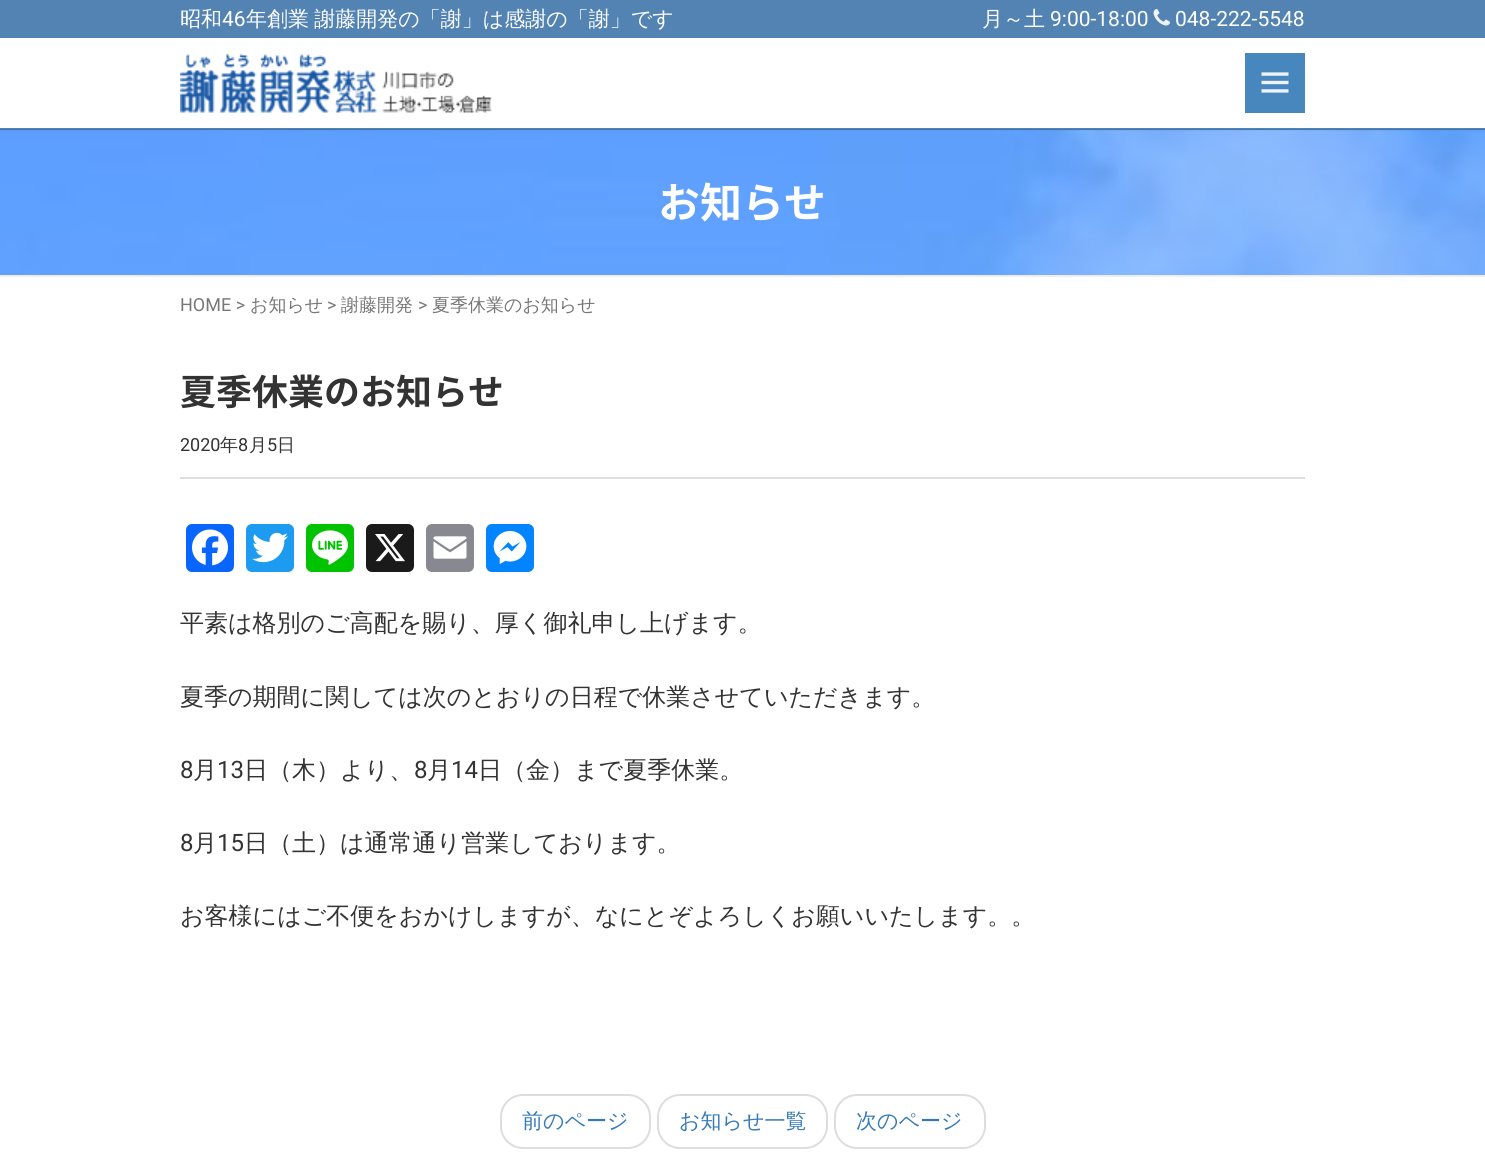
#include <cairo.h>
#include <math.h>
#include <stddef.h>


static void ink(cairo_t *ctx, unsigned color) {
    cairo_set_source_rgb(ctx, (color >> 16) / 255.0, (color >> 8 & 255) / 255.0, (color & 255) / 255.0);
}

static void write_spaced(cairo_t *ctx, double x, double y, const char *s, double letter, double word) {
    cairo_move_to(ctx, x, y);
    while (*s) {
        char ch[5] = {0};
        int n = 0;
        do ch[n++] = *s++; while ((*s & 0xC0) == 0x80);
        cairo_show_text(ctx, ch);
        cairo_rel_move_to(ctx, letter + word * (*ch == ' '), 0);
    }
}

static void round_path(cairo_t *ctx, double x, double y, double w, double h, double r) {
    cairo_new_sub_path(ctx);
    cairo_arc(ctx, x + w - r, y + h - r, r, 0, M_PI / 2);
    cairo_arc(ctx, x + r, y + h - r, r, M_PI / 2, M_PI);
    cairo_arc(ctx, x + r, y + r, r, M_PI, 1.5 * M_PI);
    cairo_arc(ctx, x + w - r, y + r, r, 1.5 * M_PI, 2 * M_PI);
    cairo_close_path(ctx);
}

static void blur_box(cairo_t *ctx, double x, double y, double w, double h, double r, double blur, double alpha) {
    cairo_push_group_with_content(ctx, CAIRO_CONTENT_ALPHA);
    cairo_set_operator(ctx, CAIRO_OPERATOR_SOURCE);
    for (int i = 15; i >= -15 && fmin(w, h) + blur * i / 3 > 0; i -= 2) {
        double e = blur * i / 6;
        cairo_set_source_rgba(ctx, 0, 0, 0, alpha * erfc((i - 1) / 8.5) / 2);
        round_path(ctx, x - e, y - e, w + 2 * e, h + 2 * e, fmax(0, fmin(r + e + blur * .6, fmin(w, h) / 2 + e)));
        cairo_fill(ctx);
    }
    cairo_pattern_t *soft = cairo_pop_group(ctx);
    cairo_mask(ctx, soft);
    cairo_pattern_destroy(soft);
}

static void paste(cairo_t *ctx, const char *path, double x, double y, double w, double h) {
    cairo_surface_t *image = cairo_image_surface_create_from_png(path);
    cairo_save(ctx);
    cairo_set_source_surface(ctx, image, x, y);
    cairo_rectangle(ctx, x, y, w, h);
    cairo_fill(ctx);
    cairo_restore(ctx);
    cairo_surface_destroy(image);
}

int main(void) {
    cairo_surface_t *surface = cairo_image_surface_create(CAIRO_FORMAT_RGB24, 1485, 1158);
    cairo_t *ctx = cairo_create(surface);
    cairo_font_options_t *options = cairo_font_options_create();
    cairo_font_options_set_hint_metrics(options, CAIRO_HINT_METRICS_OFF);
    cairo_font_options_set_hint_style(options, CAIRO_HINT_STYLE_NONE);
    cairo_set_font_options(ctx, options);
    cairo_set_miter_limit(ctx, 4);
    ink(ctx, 0xFFFFFF);
    cairo_paint(ctx);
    paste(ctx, "media/4.png", 0, 129, 1485, 146);
    cairo_save(ctx);
    cairo_rectangle(ctx, 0, 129, 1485, 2);
    cairo_clip(ctx);
    ink(ctx, 0x000000);
    blur_box(ctx, 0, 0, 1485, 129, 0, 2, 0.18);
    cairo_restore(ctx);
    cairo_set_source_rgba(ctx, 0.247, 0.459, 0.671, 0.9);
    cairo_rectangle(ctx, 0, 128, 1485, 2);
    cairo_fill(ctx);
    ink(ctx, 0x5283B3);
    cairo_rectangle(ctx, 0, 0, 1485, 38);
    cairo_fill(ctx);
    cairo_select_font_face(ctx, "WenQuanYi Zen Hei Medium", CAIRO_FONT_SLANT_NORMAL, CAIRO_FONT_WEIGHT_NORMAL);
    cairo_set_font_size(ctx, 21);
    ink(ctx, 0xFFFFFF);
    cairo_move_to(ctx, 180, 26);
    cairo_show_text(ctx, "昭和");
    cairo_select_font_face(ctx, "Roboto", CAIRO_FONT_SLANT_NORMAL, CAIRO_FONT_WEIGHT_NORMAL);
    cairo_move_to(ctx, 222, 26);
    cairo_show_text(ctx, "46");
    cairo_select_font_face(ctx, "WenQuanYi Zen Hei Medium", CAIRO_FONT_SLANT_NORMAL, CAIRO_FONT_WEIGHT_NORMAL);
    write_spaced(ctx, 246, 26, "年創業 謝藤開発の「謝」は感謝の「謝」です", 0, -1);
    cairo_move_to(ctx, 982, 26);
    cairo_show_text(ctx, "月～土");
    cairo_select_font_face(ctx, "Roboto", CAIRO_FONT_SLANT_NORMAL, CAIRO_FONT_WEIGHT_NORMAL);
    cairo_move_to(ctx, 1050, 26);
    cairo_show_text(ctx, "9:00-18:00");
    paste(ctx, "media/1.png", 1153, 9, 17, 17);
    cairo_move_to(ctx, 1175, 26);
    cairo_show_text(ctx, "048-222-5548");
    paste(ctx, "media/2.png", 180, 53, 312, 60);
    ink(ctx, 0x4787BE);
    cairo_rectangle(ctx, 1245, 53, 60, 60);
    cairo_fill(ctx);
    paste(ctx, "media/3.png", 1261, 72, 28, 21);
    ink(ctx, 0xEEEEEE);
    cairo_rectangle(ctx, 0, 275, 1485, 2);
    cairo_fill(ctx);
    cairo_select_font_face(ctx, "Noto Sans JP", CAIRO_FONT_SLANT_NORMAL, CAIRO_FONT_WEIGHT_BOLD);
    cairo_set_font_size(ctx, 42);
    ink(ctx, 0xFFFFFF);
    cairo_move_to(ctx, 658, 218);
    cairo_show_text(ctx, "お知らせ");
    cairo_select_font_face(ctx, "Roboto", CAIRO_FONT_SLANT_NORMAL, CAIRO_FONT_WEIGHT_NORMAL);
    cairo_set_font_size(ctx, 18);
    ink(ctx, 0x777777);
    cairo_move_to(ctx, 180, 311);
    cairo_show_text(ctx, "HOME >");
    cairo_select_font_face(ctx, "WenQuanYi Zen Hei Medium", CAIRO_FONT_SLANT_NORMAL, CAIRO_FONT_WEIGHT_NORMAL);
    cairo_move_to(ctx, 250, 311);
    cairo_show_text(ctx, "お知らせ");
    cairo_select_font_face(ctx, "Roboto", CAIRO_FONT_SLANT_NORMAL, CAIRO_FONT_WEIGHT_NORMAL);
    cairo_move_to(ctx, 327, 311);
    cairo_show_text(ctx, ">");
    cairo_select_font_face(ctx, "WenQuanYi Zen Hei Medium", CAIRO_FONT_SLANT_NORMAL, CAIRO_FONT_WEIGHT_NORMAL);
    cairo_move_to(ctx, 341, 311);
    cairo_show_text(ctx, "謝藤開発");
    cairo_select_font_face(ctx, "Roboto", CAIRO_FONT_SLANT_NORMAL, CAIRO_FONT_WEIGHT_NORMAL);
    cairo_move_to(ctx, 418, 311);
    cairo_show_text(ctx, ">");
    cairo_select_font_face(ctx, "WenQuanYi Zen Hei Medium", CAIRO_FONT_SLANT_NORMAL, CAIRO_FONT_WEIGHT_NORMAL);
    cairo_move_to(ctx, 432, 311);
    cairo_show_text(ctx, "夏季休業のお知らせ");
    cairo_select_font_face(ctx, "Noto Sans JP", CAIRO_FONT_SLANT_NORMAL, CAIRO_FONT_WEIGHT_BOLD);
    cairo_set_font_size(ctx, 36);
    ink(ctx, 0x333333);
    cairo_move_to(ctx, 180, 405);
    cairo_show_text(ctx, "夏季休業のお知らせ");
    ink(ctx, 0xDDDDDD);
    cairo_rectangle(ctx, 180, 477, 1125, 2);
    cairo_fill(ctx);
    cairo_select_font_face(ctx, "Roboto", CAIRO_FONT_SLANT_NORMAL, CAIRO_FONT_WEIGHT_NORMAL);
    cairo_set_font_size(ctx, 18);
    ink(ctx, 0x333333);
    cairo_move_to(ctx, 180, 451);
    cairo_show_text(ctx, "2020");
    cairo_select_font_face(ctx, "WenQuanYi Zen Hei Medium", CAIRO_FONT_SLANT_NORMAL, CAIRO_FONT_WEIGHT_NORMAL);
    cairo_move_to(ctx, 220, 451);
    cairo_show_text(ctx, "年");
    cairo_select_font_face(ctx, "Roboto", CAIRO_FONT_SLANT_NORMAL, CAIRO_FONT_WEIGHT_NORMAL);
    cairo_move_to(ctx, 238, 451);
    cairo_show_text(ctx, "8");
    cairo_select_font_face(ctx, "WenQuanYi Zen Hei Medium", CAIRO_FONT_SLANT_NORMAL, CAIRO_FONT_WEIGHT_NORMAL);
    cairo_move_to(ctx, 249, 451);
    cairo_show_text(ctx, "月");
    cairo_select_font_face(ctx, "Roboto", CAIRO_FONT_SLANT_NORMAL, CAIRO_FONT_WEIGHT_NORMAL);
    cairo_move_to(ctx, 267, 451);
    cairo_show_text(ctx, "5");
    cairo_select_font_face(ctx, "WenQuanYi Zen Hei Medium", CAIRO_FONT_SLANT_NORMAL, CAIRO_FONT_WEIGHT_NORMAL);
    cairo_move_to(ctx, 277, 451);
    cairo_show_text(ctx, "日");
    ink(ctx, 0x0866FF);
    round_path(ctx, 186, 524, 48, 48, 6);
    cairo_fill(ctx);
    paste(ctx, "media/5.png", 192, 529, 36, 37);
    ink(ctx, 0x1D9BF0);
    round_path(ctx, 246, 524, 48, 48, 6);
    cairo_fill(ctx);
    paste(ctx, "media/6.png", 252, 532, 36, 31);
    ink(ctx, 0x00C300);
    round_path(ctx, 306, 524, 48, 48, 6);
    cairo_fill(ctx);
    paste(ctx, "media/7.png", 312, 530, 36, 35);
    ink(ctx, 0x1A1A1A);
    round_path(ctx, 366, 524, 48, 48, 6);
    cairo_fill(ctx);
    paste(ctx, "media/8.png", 375, 534, 30, 28);
    ink(ctx, 0x888990);
    round_path(ctx, 426, 524, 48, 48, 6);
    cairo_fill(ctx);
    paste(ctx, "media/9.png", 433, 536, 34, 23);
    ink(ctx, 0x0084FF);
    round_path(ctx, 486, 524, 48, 48, 6);
    cairo_fill(ctx);
    paste(ctx, "media/10.png", 493, 531, 34, 33);
    cairo_set_font_size(ctx, 24);
    ink(ctx, 0x333333);
    cairo_move_to(ctx, 180, 631);
    cairo_show_text(ctx, "平素は格別のご高配を賜り、厚く御礼申し上げます。");
    cairo_move_to(ctx, 180, 705);
    cairo_show_text(ctx, "夏季の期間に関しては次のとおりの日程で休業させていただきます。");
    cairo_select_font_face(ctx, "Roboto", CAIRO_FONT_SLANT_NORMAL, CAIRO_FONT_WEIGHT_NORMAL);
    cairo_move_to(ctx, 180, 778);
    cairo_show_text(ctx, "8");
    cairo_select_font_face(ctx, "WenQuanYi Zen Hei Medium", CAIRO_FONT_SLANT_NORMAL, CAIRO_FONT_WEIGHT_NORMAL);
    cairo_move_to(ctx, 193, 778);
    cairo_show_text(ctx, "月");
    cairo_select_font_face(ctx, "Roboto", CAIRO_FONT_SLANT_NORMAL, CAIRO_FONT_WEIGHT_NORMAL);
    cairo_move_to(ctx, 217, 778);
    cairo_show_text(ctx, "13");
    cairo_select_font_face(ctx, "WenQuanYi Zen Hei Medium", CAIRO_FONT_SLANT_NORMAL, CAIRO_FONT_WEIGHT_NORMAL);
    cairo_move_to(ctx, 244, 778);
    cairo_show_text(ctx, "日（木）より、");
    cairo_select_font_face(ctx, "Roboto", CAIRO_FONT_SLANT_NORMAL, CAIRO_FONT_WEIGHT_NORMAL);
    cairo_move_to(ctx, 414, 778);
    cairo_show_text(ctx, "8");
    cairo_select_font_face(ctx, "WenQuanYi Zen Hei Medium", CAIRO_FONT_SLANT_NORMAL, CAIRO_FONT_WEIGHT_NORMAL);
    cairo_move_to(ctx, 427, 778);
    cairo_show_text(ctx, "月");
    cairo_select_font_face(ctx, "Roboto", CAIRO_FONT_SLANT_NORMAL, CAIRO_FONT_WEIGHT_NORMAL);
    cairo_move_to(ctx, 451, 778);
    cairo_show_text(ctx, "14");
    cairo_select_font_face(ctx, "WenQuanYi Zen Hei Medium", CAIRO_FONT_SLANT_NORMAL, CAIRO_FONT_WEIGHT_NORMAL);
    cairo_move_to(ctx, 478, 778);
    cairo_show_text(ctx, "日（金）まで夏季休業。");
    cairo_select_font_face(ctx, "Roboto", CAIRO_FONT_SLANT_NORMAL, CAIRO_FONT_WEIGHT_NORMAL);
    cairo_move_to(ctx, 180, 851);
    cairo_show_text(ctx, "8");
    cairo_select_font_face(ctx, "WenQuanYi Zen Hei Medium", CAIRO_FONT_SLANT_NORMAL, CAIRO_FONT_WEIGHT_NORMAL);
    cairo_move_to(ctx, 193, 851);
    cairo_show_text(ctx, "月");
    cairo_select_font_face(ctx, "Roboto", CAIRO_FONT_SLANT_NORMAL, CAIRO_FONT_WEIGHT_NORMAL);
    cairo_move_to(ctx, 217, 851);
    cairo_show_text(ctx, "15");
    cairo_select_font_face(ctx, "WenQuanYi Zen Hei Medium", CAIRO_FONT_SLANT_NORMAL, CAIRO_FONT_WEIGHT_NORMAL);
    cairo_move_to(ctx, 244, 851);
    cairo_show_text(ctx, "日（土）は通常通り営業しております。");
    cairo_move_to(ctx, 180, 924);
    cairo_show_text(ctx, "お客様にはご不便をおかけしますが、なにとぞよろしくお願いいたします。。");
    round_path(ctx, 501, 1095, 149, 53, 22);
    ink(ctx, 0xDDDDDD);
    cairo_stroke(ctx);
    cairo_set_font_size(ctx, 21);
    ink(ctx, 0x337AB7);
    cairo_move_to(ctx, 522, 1128);
    cairo_show_text(ctx, "前のページ");
    round_path(ctx, 658, 1095, 169, 53, 22);
    ink(ctx, 0xDDDDDD);
    cairo_stroke(ctx);
    ink(ctx, 0x337AB7);
    cairo_move_to(ctx, 679, 1128);
    cairo_show_text(ctx, "お知らせ一覧");
    round_path(ctx, 835, 1095, 150, 53, 22);
    ink(ctx, 0xDDDDDD);
    cairo_stroke(ctx);
    ink(ctx, 0x337AB7);
    cairo_move_to(ctx, 856, 1128);
    cairo_show_text(ctx, "次のページ");
    cairo_surface_write_to_png(surface, "image.png");
    cairo_font_options_destroy(options);
    cairo_destroy(ctx);
    cairo_surface_destroy(surface);
    return 0;
}
